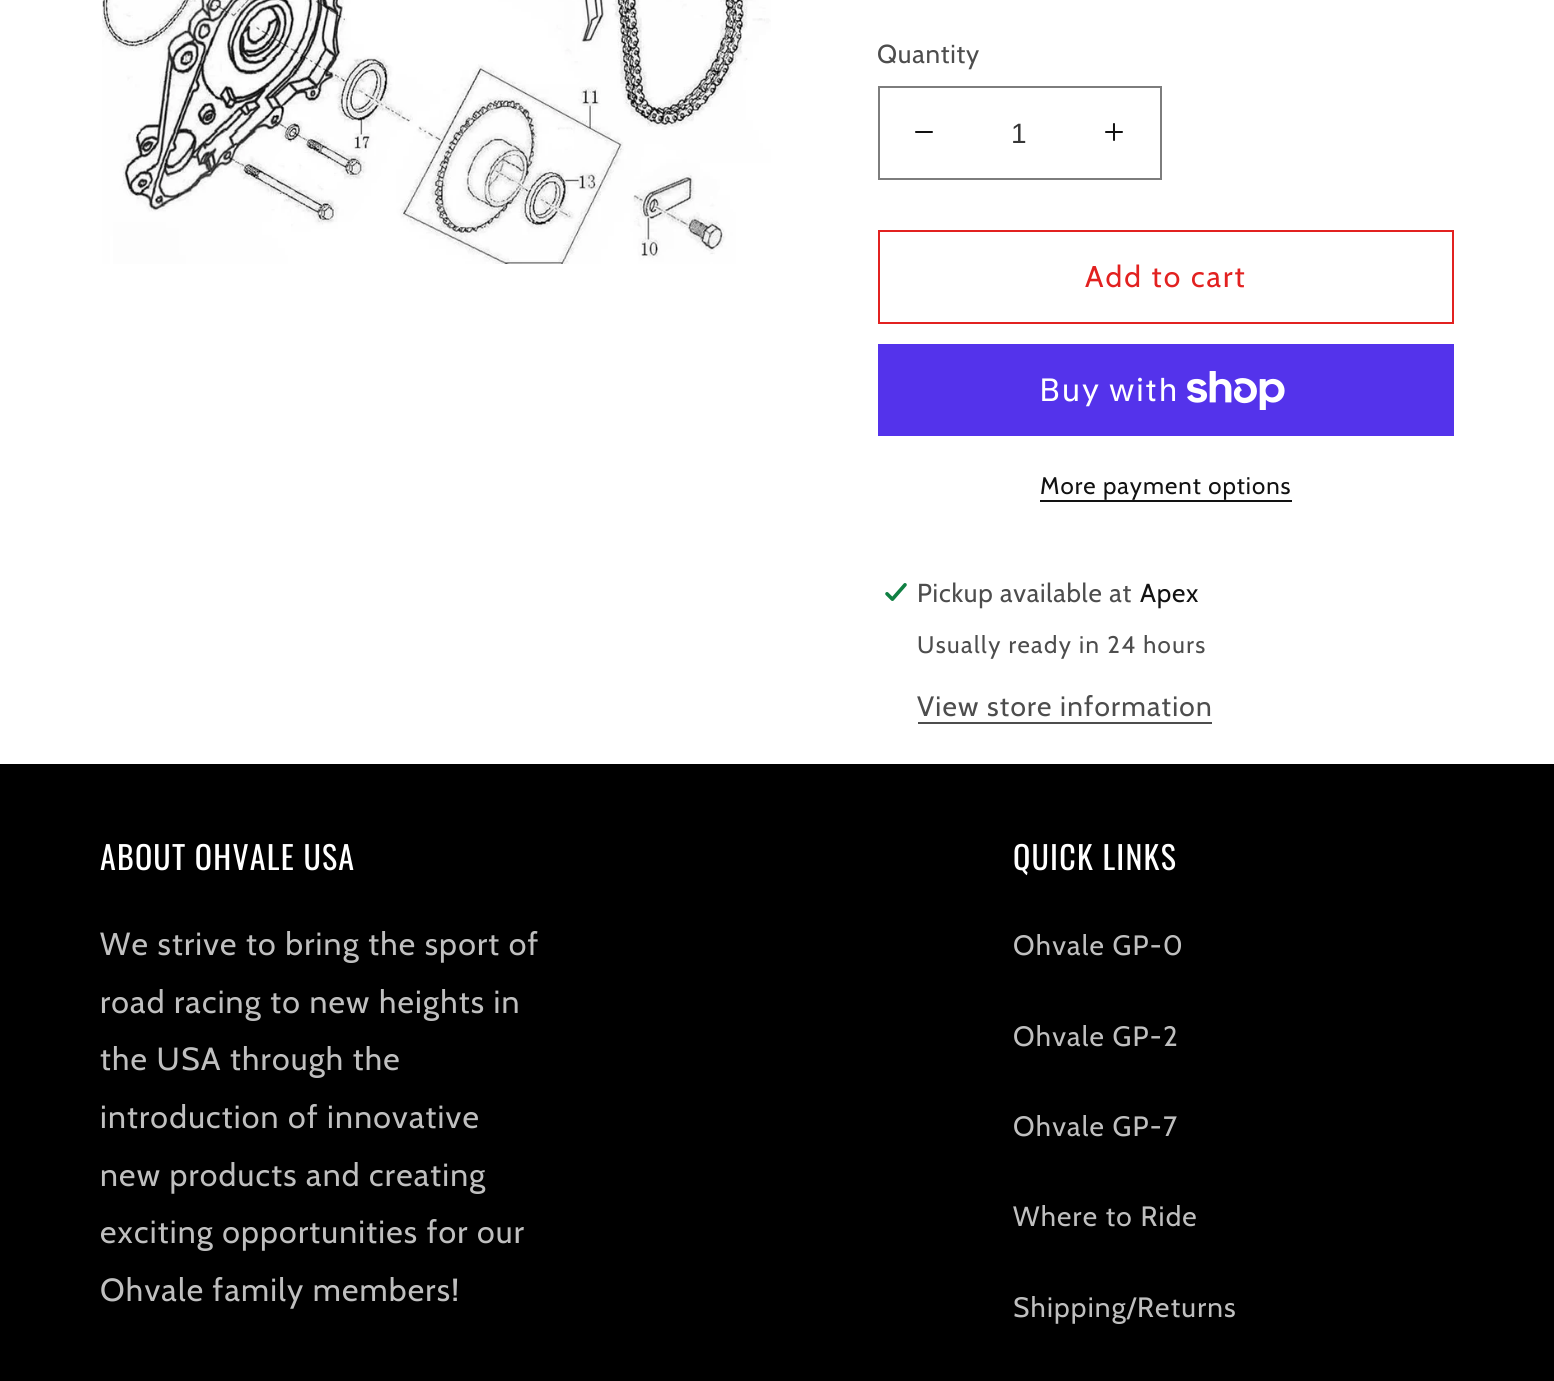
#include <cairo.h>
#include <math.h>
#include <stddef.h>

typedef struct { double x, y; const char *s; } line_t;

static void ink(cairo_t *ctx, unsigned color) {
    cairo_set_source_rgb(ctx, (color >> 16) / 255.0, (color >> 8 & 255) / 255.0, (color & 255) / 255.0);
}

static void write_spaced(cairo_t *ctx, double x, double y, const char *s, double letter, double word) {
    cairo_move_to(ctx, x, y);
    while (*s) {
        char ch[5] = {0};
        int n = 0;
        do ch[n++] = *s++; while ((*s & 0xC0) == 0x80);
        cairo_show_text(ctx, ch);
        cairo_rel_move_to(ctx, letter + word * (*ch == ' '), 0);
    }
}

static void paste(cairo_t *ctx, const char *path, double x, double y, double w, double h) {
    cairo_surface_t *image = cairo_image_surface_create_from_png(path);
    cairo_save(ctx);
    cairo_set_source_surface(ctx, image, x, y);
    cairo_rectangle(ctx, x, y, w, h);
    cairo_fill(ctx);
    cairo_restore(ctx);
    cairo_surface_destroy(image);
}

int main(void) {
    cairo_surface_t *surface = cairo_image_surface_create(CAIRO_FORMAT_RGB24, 1554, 1381);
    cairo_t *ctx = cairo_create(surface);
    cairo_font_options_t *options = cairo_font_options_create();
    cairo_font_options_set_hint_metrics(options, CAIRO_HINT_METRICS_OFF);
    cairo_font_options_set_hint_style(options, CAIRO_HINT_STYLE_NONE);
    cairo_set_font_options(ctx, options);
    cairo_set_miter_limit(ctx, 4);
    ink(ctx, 0xFFFFFF);
    cairo_paint(ctx);
    paste(ctx, "media/1.png", 102, 0, 669, 264);
    cairo_select_font_face(ctx, "Cabin", CAIRO_FONT_SLANT_NORMAL, CAIRO_FONT_WEIGHT_NORMAL);
    cairo_set_font_size(ctx, 26);
    ink(ctx, 0x4D4D4D);
    write_spaced(ctx, 877, 63, "Quantity", 0.75, 0);
    paste(ctx, "media/2.png", 915, 131, 18, 2);
    paste(ctx, "media/3.png", 1105, 123, 18, 18);
    cairo_rectangle(ctx, 879, 87, 282, 92);
    ink(ctx, 0x7D7D7D);
    cairo_stroke(ctx);
    cairo_select_font_face(ctx, "Liberation Sans", CAIRO_FONT_SLANT_NORMAL, CAIRO_FONT_WEIGHT_NORMAL);
    cairo_set_font_size(ctx, 28);
    ink(ctx, 0x363636);
    cairo_move_to(ctx, 1011, 143);
    cairo_show_text(ctx, "1");
    cairo_rectangle(ctx, 879, 231, 574, 92);
    ink(ctx, 0xE22120);
    cairo_stroke(ctx);
    cairo_select_font_face(ctx, "Cabin", CAIRO_FONT_SLANT_NORMAL, CAIRO_FONT_WEIGHT_NORMAL);
    cairo_set_font_size(ctx, 30);
    write_spaced(ctx, 1085, 287, "Add to cart", 2, 0);
    ink(ctx, 0x5433EB);
    cairo_rectangle(ctx, 878, 344, 576, 92);
    cairo_fill(ctx);
    cairo_select_font_face(ctx, "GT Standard", CAIRO_FONT_SLANT_NORMAL, CAIRO_FONT_WEIGHT_NORMAL);
    cairo_set_font_size(ctx, 32);
    ink(ctx, 0xFFFFFF);
    write_spaced(ctx, 1039, 401, "Buy with", 1.2, 0);
    paste(ctx, "media/4.png", 1187, 371, 98, 39);
    cairo_select_font_face(ctx, "Cabin", CAIRO_FONT_SLANT_NORMAL, CAIRO_FONT_WEIGHT_NORMAL);
    cairo_set_font_size(ctx, 24);
    ink(ctx, 0x121212);
    write_spaced(ctx, 1040, 494, "More payment options", 1, 0);
    cairo_rectangle(ctx, 1040, 500, 252, 2);
    cairo_fill(ctx);
    paste(ctx, "media/5.png", 885, 583, 22, 18);
    cairo_set_font_size(ctx, 26);
    ink(ctx, 0x4D4D4D);
    write_spaced(ctx, 917, 602, "Pickup available at", 0.75, 0);
    ink(ctx, 0x121212);
    write_spaced(ctx, 1140, 602, "Apex", 0.75, 0);
    cairo_set_font_size(ctx, 24);
    ink(ctx, 0x4D4D4D);
    write_spaced(ctx, 917, 653, "Usually ready in 24 hours", 1.4, 0);
    cairo_set_font_size(ctx, 28);
    write_spaced(ctx, 917, 716, "View store information", 1.2, 0);
    cairo_rectangle(ctx, 918, 722, 294, 2);
    cairo_fill(ctx);
    ink(ctx, 0x000000);
    cairo_rectangle(ctx, 0, 764, 1554, 617);
    cairo_fill(ctx);
    cairo_select_font_face(ctx, "Oswald", CAIRO_FONT_SLANT_NORMAL, CAIRO_FONT_WEIGHT_NORMAL);
    cairo_set_font_size(ctx, 32);
    ink(ctx, 0xFFFFFF);
    write_spaced(ctx, 100, 870, "ABOUT OHVALE USA", 1.2, 0);
    cairo_select_font_face(ctx, "Cabin", CAIRO_FONT_SLANT_NORMAL, CAIRO_FONT_WEIGHT_NORMAL);
    ink(ctx, 0xBFBFBF);
    {
        static const line_t items[] = {
            {100, 955, "We strive to bring the sport of"},
            {100, 1013, "road racing to new heights in"},
            {100, 1070, "the USA through the"},
            {100, 1128, "introduction of innovative"},
            {100, 1186, "new products and creating"},
            {100, 1243, "exciting opportunities for our"},
            {100, 1301, "Ohvale family members!"},
        };
        for (size_t i = 0; i < sizeof items / sizeof *items; i++) {
            write_spaced(ctx, items[i].x, items[i].y, items[i].s, 1.2, 0);
        }
    }
    cairo_select_font_face(ctx, "Oswald", CAIRO_FONT_SLANT_NORMAL, CAIRO_FONT_WEIGHT_NORMAL);
    ink(ctx, 0xFFFFFF);
    write_spaced(ctx, 1013, 870, "QUICK LINKS", 1.2, 0);
    cairo_select_font_face(ctx, "Cabin", CAIRO_FONT_SLANT_NORMAL, CAIRO_FONT_WEIGHT_NORMAL);
    cairo_set_font_size(ctx, 28);
    ink(ctx, 0xBFBFBF);
    {
        static const line_t items[] = {
            {1013, 955, "Ohvale GP-0"},
            {1013, 1046, "Ohvale GP-2"},
            {1013, 1136, "Ohvale GP-7"},
            {1013, 1226, "Where to Ride"},
            {1013, 1317, "Shipping/Returns"},
        };
        for (size_t i = 0; i < sizeof items / sizeof *items; i++) {
            write_spaced(ctx, items[i].x, items[i].y, items[i].s, 1.2, 0);
        }
    }
    cairo_surface_write_to_png(surface, "image.png");
    cairo_font_options_destroy(options);
    cairo_destroy(ctx);
    cairo_surface_destroy(surface);
    return 0;
}
